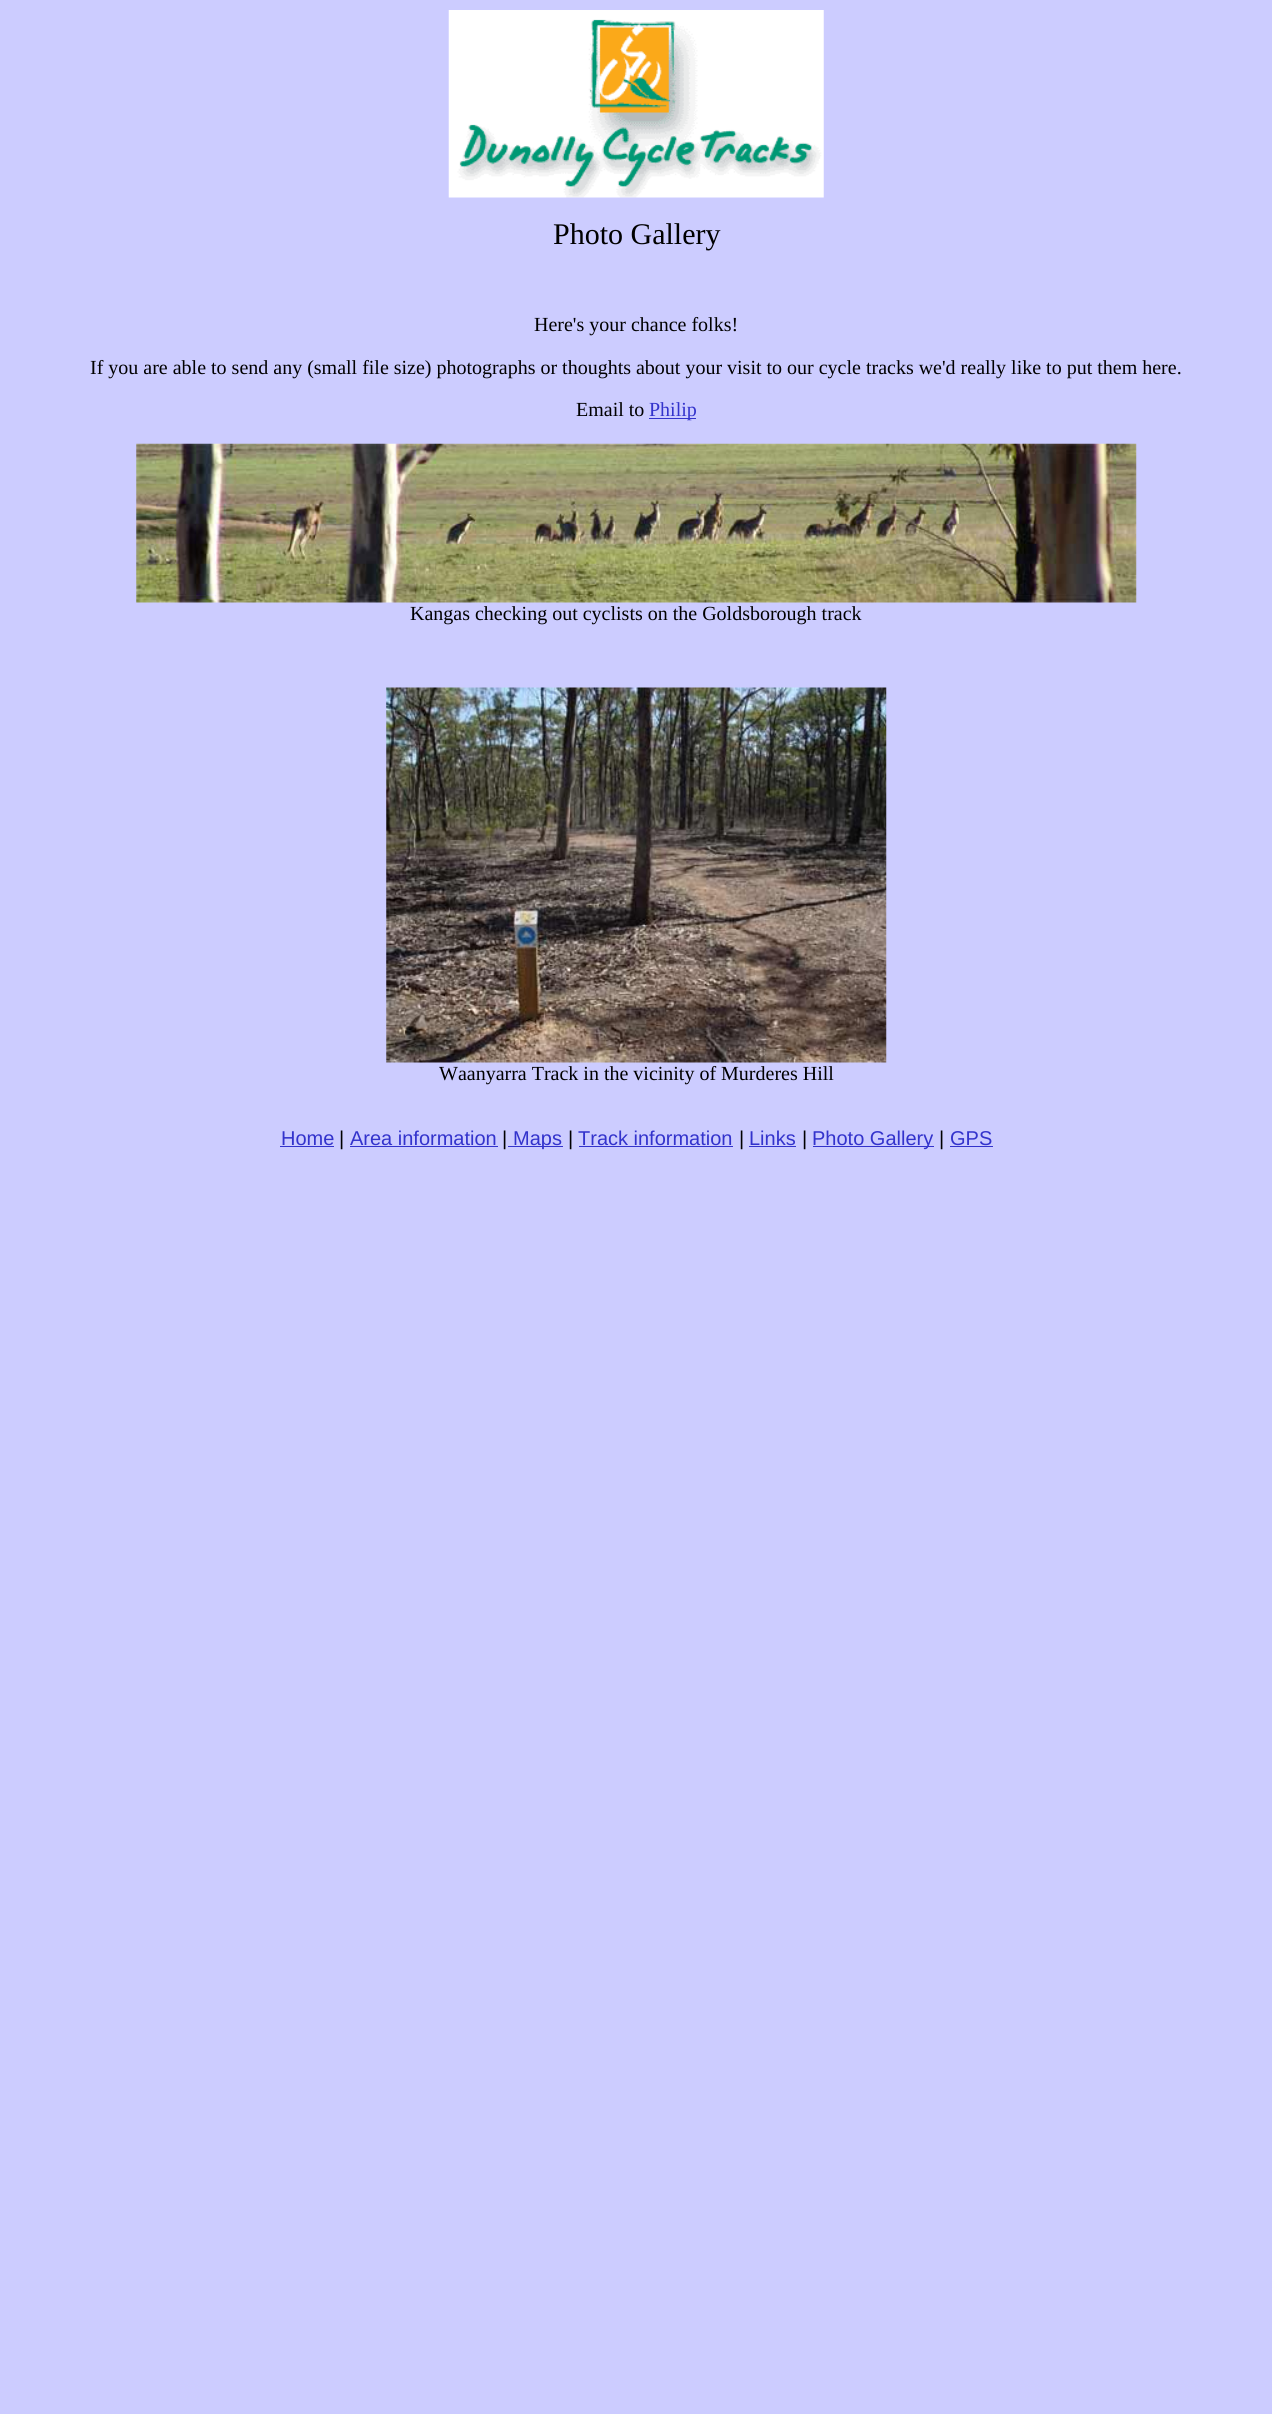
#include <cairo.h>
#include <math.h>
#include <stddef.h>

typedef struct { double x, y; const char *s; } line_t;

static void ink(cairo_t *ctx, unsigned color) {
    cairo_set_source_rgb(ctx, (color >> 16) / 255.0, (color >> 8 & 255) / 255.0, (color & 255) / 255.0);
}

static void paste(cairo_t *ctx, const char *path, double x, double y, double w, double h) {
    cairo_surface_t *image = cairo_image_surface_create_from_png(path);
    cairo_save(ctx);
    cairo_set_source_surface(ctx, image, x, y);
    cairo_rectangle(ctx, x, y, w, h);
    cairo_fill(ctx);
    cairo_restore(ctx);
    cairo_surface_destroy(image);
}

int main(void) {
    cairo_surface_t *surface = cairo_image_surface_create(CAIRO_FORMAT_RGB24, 1272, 2414);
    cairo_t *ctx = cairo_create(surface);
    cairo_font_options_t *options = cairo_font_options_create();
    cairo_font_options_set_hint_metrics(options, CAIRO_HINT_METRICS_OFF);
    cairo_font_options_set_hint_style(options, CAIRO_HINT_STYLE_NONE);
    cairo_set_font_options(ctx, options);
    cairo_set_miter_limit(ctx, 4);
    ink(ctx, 0xCCCCFF);
    cairo_paint(ctx);
    paste(ctx, "media/1.png", 448, 10, 376, 188);
    cairo_select_font_face(ctx, "Liberation Serif", CAIRO_FONT_SLANT_NORMAL, CAIRO_FONT_WEIGHT_NORMAL);
    cairo_set_font_size(ctx, 30);
    ink(ctx, 0x000000);
    cairo_move_to(ctx, 553, 244);
    cairo_show_text(ctx, "Photo Gallery");
    cairo_set_font_size(ctx, 20);
    {
        static const line_t items[] = {
            {534, 331, "Here's your chance folks!"},
            {90, 374, "If you are able to send any (small file size) photographs or thoughts about your visit to our cycle tracks we'd really like to put them here."},
            {576, 416, "Email to"},
        };
        for (size_t i = 0; i < sizeof items / sizeof *items; i++) {
            cairo_move_to(ctx, items[i].x, items[i].y);
            cairo_show_text(ctx, items[i].s);
        }
    }
    ink(ctx, 0x3333CC);
    cairo_rectangle(ctx, 649, 418, 47, 1);
    cairo_fill(ctx);
    cairo_move_to(ctx, 649, 416);
    cairo_show_text(ctx, "Philip");
    paste(ctx, "media/2.png", 136, 443, 1001, 160);
    ink(ctx, 0x000000);
    cairo_move_to(ctx, 410, 620);
    cairo_show_text(ctx, "Kangas checking out cyclists on the Goldsborough track");
    paste(ctx, "media/3.png", 386, 687, 501, 376);
    cairo_move_to(ctx, 439, 1080);
    cairo_show_text(ctx, "Waanyarra Track in the vicinity of Murderes Hill");
    cairo_select_font_face(ctx, "Liberation Sans", CAIRO_FONT_SLANT_NORMAL, CAIRO_FONT_WEIGHT_NORMAL);
    ink(ctx, 0x3333CC);
    cairo_move_to(ctx, 281, 1145);
    cairo_show_text(ctx, "Home");
    cairo_rectangle(ctx, 280, 1146, 54, 1);
    cairo_fill(ctx);
    ink(ctx, 0x000000);
    cairo_move_to(ctx, 339, 1145);
    cairo_show_text(ctx, "|");
    ink(ctx, 0x3333CC);
    cairo_move_to(ctx, 350, 1145);
    cairo_show_text(ctx, "Area information");
    cairo_rectangle(ctx, 350, 1146, 148, 1);
    cairo_fill(ctx);
    ink(ctx, 0x000000);
    cairo_move_to(ctx, 502, 1145);
    cairo_show_text(ctx, "|");
    ink(ctx, 0x3333CC);
    cairo_rectangle(ctx, 508, 1146, 55, 1);
    cairo_fill(ctx);
    cairo_move_to(ctx, 513, 1145);
    cairo_show_text(ctx, "Maps");
    ink(ctx, 0x000000);
    cairo_move_to(ctx, 568, 1145);
    cairo_show_text(ctx, "|");
    ink(ctx, 0x3333CC);
    cairo_move_to(ctx, 578, 1145);
    cairo_show_text(ctx, "Track information");
    cairo_rectangle(ctx, 579, 1146, 154, 1);
    cairo_fill(ctx);
    ink(ctx, 0x000000);
    cairo_move_to(ctx, 739, 1145);
    cairo_show_text(ctx, "|");
    ink(ctx, 0x3333CC);
    cairo_move_to(ctx, 749, 1145);
    cairo_show_text(ctx, "Links");
    cairo_rectangle(ctx, 749, 1146, 47, 1);
    cairo_fill(ctx);
    ink(ctx, 0x000000);
    cairo_move_to(ctx, 802, 1145);
    cairo_show_text(ctx, "|");
    ink(ctx, 0x3333CC);
    cairo_rectangle(ctx, 813, 1146, 121, 1);
    cairo_fill(ctx);
    cairo_move_to(ctx, 812, 1145);
    cairo_show_text(ctx, "Photo Gallery");
    ink(ctx, 0x000000);
    cairo_move_to(ctx, 939, 1145);
    cairo_show_text(ctx, "|");
    ink(ctx, 0x3333CC);
    cairo_move_to(ctx, 950, 1145);
    cairo_show_text(ctx, "GPS");
    cairo_rectangle(ctx, 950, 1146, 43, 1);
    cairo_fill(ctx);
    cairo_surface_write_to_png(surface, "image.png");
    cairo_font_options_destroy(options);
    cairo_destroy(ctx);
    cairo_surface_destroy(surface);
    return 0;
}
